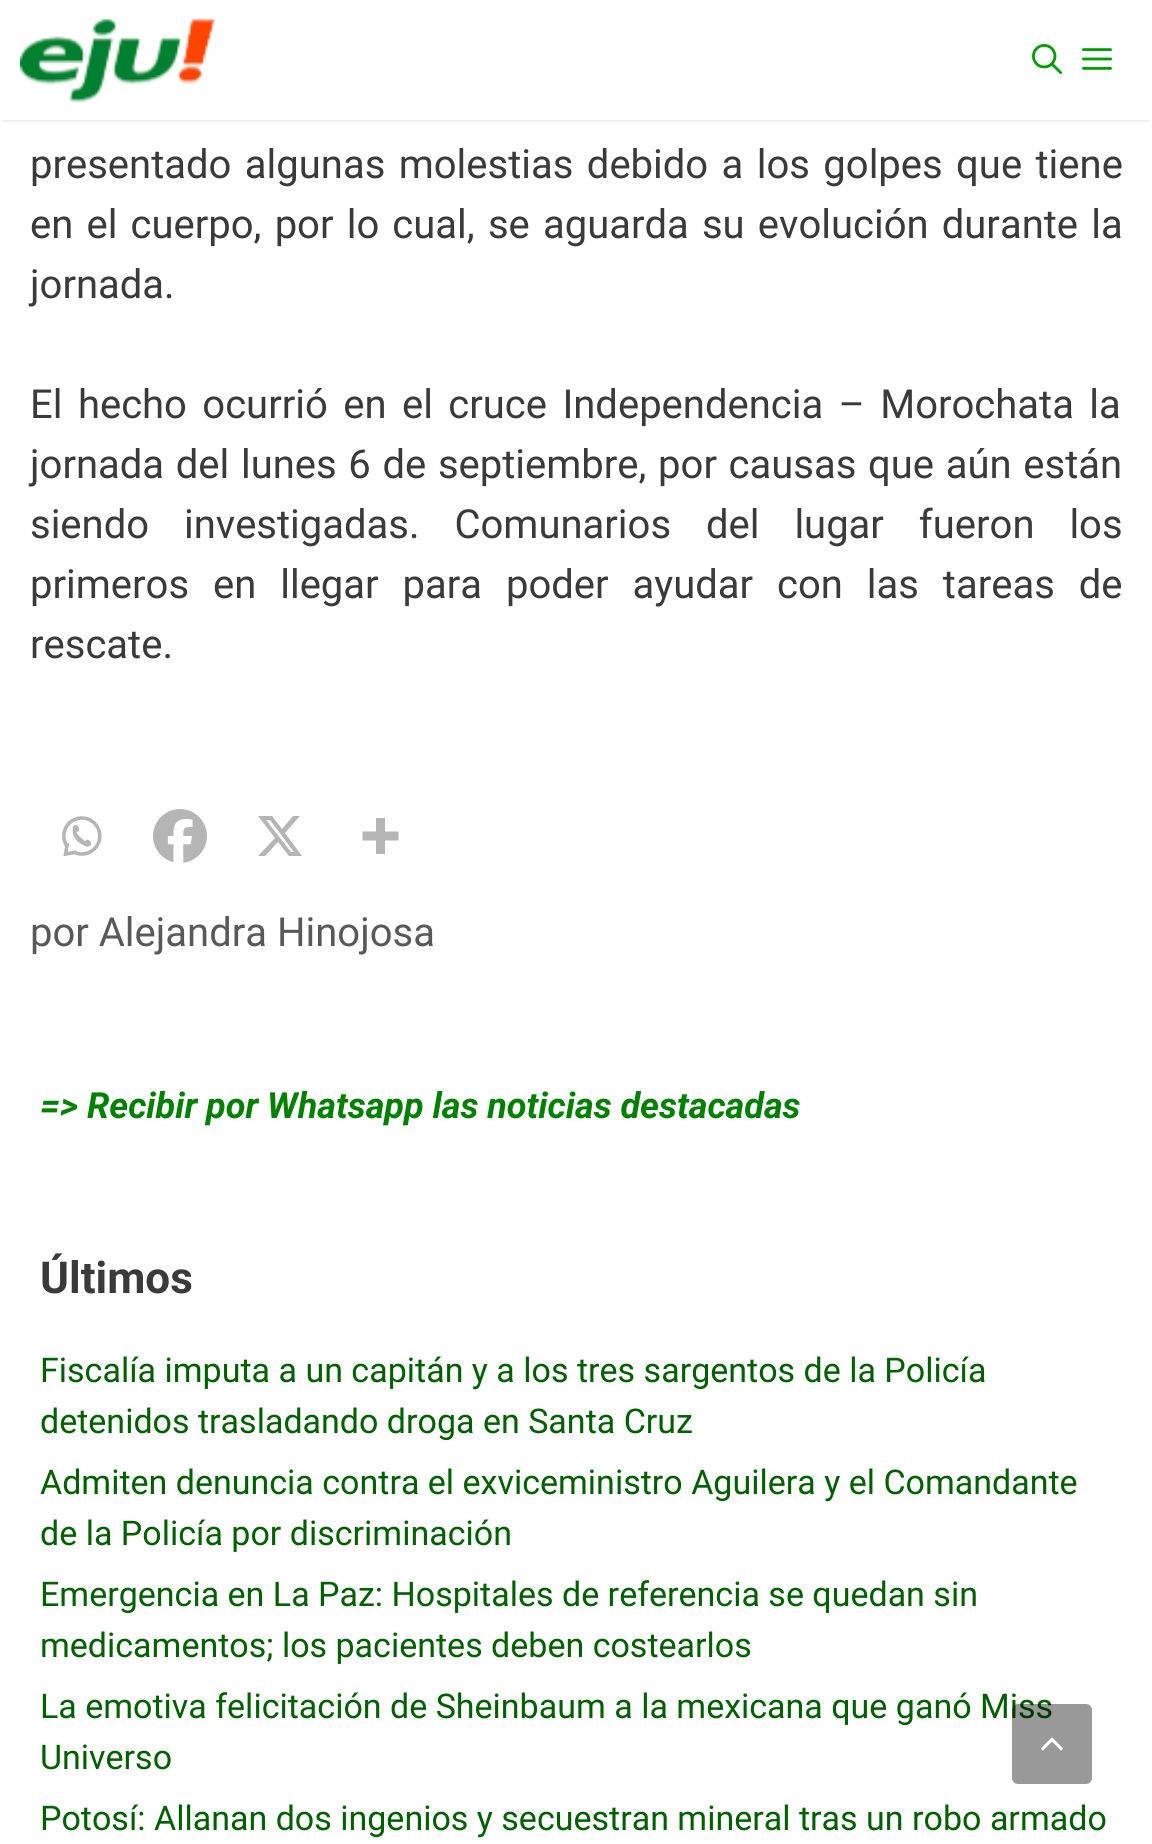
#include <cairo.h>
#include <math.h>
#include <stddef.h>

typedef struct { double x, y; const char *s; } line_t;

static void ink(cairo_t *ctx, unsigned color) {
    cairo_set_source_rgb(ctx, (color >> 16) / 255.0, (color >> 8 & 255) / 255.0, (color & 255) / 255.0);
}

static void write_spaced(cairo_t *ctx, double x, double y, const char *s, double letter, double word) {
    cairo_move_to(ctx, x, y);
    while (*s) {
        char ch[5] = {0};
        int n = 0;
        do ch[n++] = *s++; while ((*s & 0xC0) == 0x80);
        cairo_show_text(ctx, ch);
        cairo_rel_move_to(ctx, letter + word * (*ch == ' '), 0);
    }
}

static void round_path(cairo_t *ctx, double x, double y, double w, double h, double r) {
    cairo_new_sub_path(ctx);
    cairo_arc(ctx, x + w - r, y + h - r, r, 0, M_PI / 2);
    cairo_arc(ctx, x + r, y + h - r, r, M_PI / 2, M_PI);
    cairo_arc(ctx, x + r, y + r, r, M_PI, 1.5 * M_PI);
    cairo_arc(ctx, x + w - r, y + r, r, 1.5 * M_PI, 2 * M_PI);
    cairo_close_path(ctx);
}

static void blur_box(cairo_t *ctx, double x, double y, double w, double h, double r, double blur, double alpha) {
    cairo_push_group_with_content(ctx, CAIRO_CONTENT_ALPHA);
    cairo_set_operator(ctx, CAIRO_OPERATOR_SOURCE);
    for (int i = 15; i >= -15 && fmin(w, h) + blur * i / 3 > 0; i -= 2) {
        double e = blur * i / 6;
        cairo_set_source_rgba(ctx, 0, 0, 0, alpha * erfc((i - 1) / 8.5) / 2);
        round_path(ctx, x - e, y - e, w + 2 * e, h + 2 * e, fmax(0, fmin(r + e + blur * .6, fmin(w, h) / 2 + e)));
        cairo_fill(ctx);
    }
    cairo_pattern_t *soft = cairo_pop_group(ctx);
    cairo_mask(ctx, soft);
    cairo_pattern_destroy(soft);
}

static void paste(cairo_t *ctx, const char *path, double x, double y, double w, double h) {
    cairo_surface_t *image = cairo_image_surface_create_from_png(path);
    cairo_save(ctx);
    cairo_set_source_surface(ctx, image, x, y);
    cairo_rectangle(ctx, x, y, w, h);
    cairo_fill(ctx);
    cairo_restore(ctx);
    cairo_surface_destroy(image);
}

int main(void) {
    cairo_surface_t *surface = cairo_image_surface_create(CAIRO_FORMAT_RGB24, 1152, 1844);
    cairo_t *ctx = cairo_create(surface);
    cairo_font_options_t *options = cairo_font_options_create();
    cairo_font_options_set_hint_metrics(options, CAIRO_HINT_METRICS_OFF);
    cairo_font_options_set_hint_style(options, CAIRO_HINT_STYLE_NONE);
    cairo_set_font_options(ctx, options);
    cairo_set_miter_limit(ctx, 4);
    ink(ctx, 0xFFFFFF);
    cairo_paint(ctx);
    ink(ctx, 0x000000);
    blur_box(ctx, 4, 8, 1144, 112, 0, 2, 0.2);
    ink(ctx, 0xFFFFFF);
    cairo_rectangle(ctx, 1, 5, 1150, 115);
    cairo_fill(ctx);
    paste(ctx, "media/1.png", 20, 18, 195, 84);
    paste(ctx, "media/2.png", 1032, 44, 30, 30);
    paste(ctx, "media/3.png", 1082, 48, 30, 22);
    cairo_select_font_face(ctx, "Roboto", CAIRO_FONT_SLANT_NORMAL, CAIRO_FONT_WEIGHT_NORMAL);
    cairo_set_font_size(ctx, 40);
    ink(ctx, 0x3A3A3A);
    write_spaced(ctx, 30, 178, "presentado algunas molestias debido a los golpes que tiene", 0, 3.5);
    write_spaced(ctx, 30, 238, "en el cuerpo, por lo cual, se aguarda su evolución durante la", 0, 3.25);
    cairo_move_to(ctx, 30, 298);
    cairo_show_text(ctx, "jornada.");
    write_spaced(ctx, 30, 418, "El hecho ocurrió en el cruce Independencia – Morochata la", 0, 5.5);
    write_spaced(ctx, 30, 478, "jornada del lunes 6 de septiembre, por causas que aún están", 0, 1.75);
    write_spaced(ctx, 30, 538, "siendo investigadas. Comunarios del lugar fueron los", 0, 25);
    write_spaced(ctx, 30, 598, "primeros en llegar para poder ayudar con las tareas de", 0, 14);
    cairo_move_to(ctx, 30, 658);
    cairo_show_text(ctx, "rescate.");
    paste(ctx, "media/4.png", 62, 816, 40, 41);
    paste(ctx, "media/5.png", 153, 809, 54, 54);
    ink(ctx, 0xB5B5B5);
    cairo_new_path(ctx);
    cairo_move_to(ctx, 293, 816);
    cairo_line_to(ctx, 300, 816);
    cairo_line_to(ctx, 285, 833);
    cairo_line_to(ctx, 302, 856);
    cairo_line_to(ctx, 289, 856);
    cairo_line_to(ctx, 278, 842);
    cairo_line_to(ctx, 265, 856);
    cairo_line_to(ctx, 258, 856);
    cairo_line_to(ctx, 275, 838);
    cairo_line_to(ctx, 258, 816);
    cairo_line_to(ctx, 272, 816);
    cairo_line_to(ctx, 282, 829);
    cairo_close_path(ctx);
    cairo_move_to(ctx, 291, 852);
    cairo_line_to(ctx, 294, 852);
    cairo_line_to(ctx, 270, 820);
    cairo_line_to(ctx, 266, 820);
    cairo_close_path(ctx);
    cairo_fill(ctx);
    cairo_set_fill_rule(ctx, CAIRO_FILL_RULE_EVEN_ODD);
    cairo_new_path(ctx);
    cairo_move_to(ctx, 385, 831.5);
    cairo_line_to(ctx, 385, 818);
    cairo_line_to(ctx, 376, 818);
    cairo_line_to(ctx, 376, 831.5);
    cairo_line_to(ctx, 362.5, 831.5);
    cairo_line_to(ctx, 362.5, 840.5);
    cairo_line_to(ctx, 376, 840.5);
    cairo_line_to(ctx, 376, 854);
    cairo_line_to(ctx, 385, 854);
    cairo_line_to(ctx, 385, 840.5);
    cairo_line_to(ctx, 398.5, 840.5);
    cairo_line_to(ctx, 398.5, 831.5);
    cairo_close_path(ctx);
    cairo_fill(ctx);
    ink(ctx, 0x595959);
    cairo_move_to(ctx, 30, 946);
    cairo_show_text(ctx, "por Alejandra Hinojosa");
    cairo_select_font_face(ctx, "Roboto", CAIRO_FONT_SLANT_ITALIC, CAIRO_FONT_WEIGHT_BOLD);
    cairo_set_font_size(ctx, 36);
    ink(ctx, 0x008000);
    cairo_move_to(ctx, 40, 1118);
    cairo_show_text(ctx, "=> Recibir por Whatsapp las noticias destacadas");
    cairo_select_font_face(ctx, "Roboto", CAIRO_FONT_SLANT_NORMAL, CAIRO_FONT_WEIGHT_BOLD);
    cairo_set_font_size(ctx, 44);
    ink(ctx, 0x3A3A3A);
    cairo_move_to(ctx, 40, 1293);
    cairo_show_text(ctx, "Últimos");
    cairo_select_font_face(ctx, "Roboto", CAIRO_FONT_SLANT_NORMAL, CAIRO_FONT_WEIGHT_NORMAL);
    cairo_set_font_size(ctx, 34);
    ink(ctx, 0x006000);
    {
        static const line_t items[] = {
            {40, 1382, "Fiscalía imputa a un capitán y a los tres sargentos de la Policía"},
            {40, 1433, "detenidos trasladando droga en Santa Cruz"},
            {40, 1494, "Admiten denuncia contra el exviceministro Aguilera y el Comandante"},
            {40, 1545, "de la Policía por discriminación"},
            {40, 1606, "Emergencia en La Paz: Hospitales de referencia se quedan sin"},
            {40, 1657, "medicamentos; los pacientes deben costearlos"},
            {40, 1718, "La emotiva felicitación de Sheinbaum a la mexicana que ganó Miss"},
            {40, 1769, "Universo"},
            {40, 1830, "Potosí: Allanan dos ingenios y secuestran mineral tras un robo armado"},
        };
        for (size_t i = 0; i < sizeof items / sizeof *items; i++) {
            cairo_move_to(ctx, items[i].x, items[i].y);
            cairo_show_text(ctx, items[i].s);
        }
    }
    cairo_set_source_rgba(ctx, 0, 0, 0, 0.4);
    round_path(ctx, 1012, 1704, 80, 80, 6);
    cairo_fill(ctx);
    paste(ctx, "media/6.png", 1041, 1737, 22, 14);
    cairo_surface_write_to_png(surface, "image.png");
    cairo_font_options_destroy(options);
    cairo_destroy(ctx);
    cairo_surface_destroy(surface);
    return 0;
}
